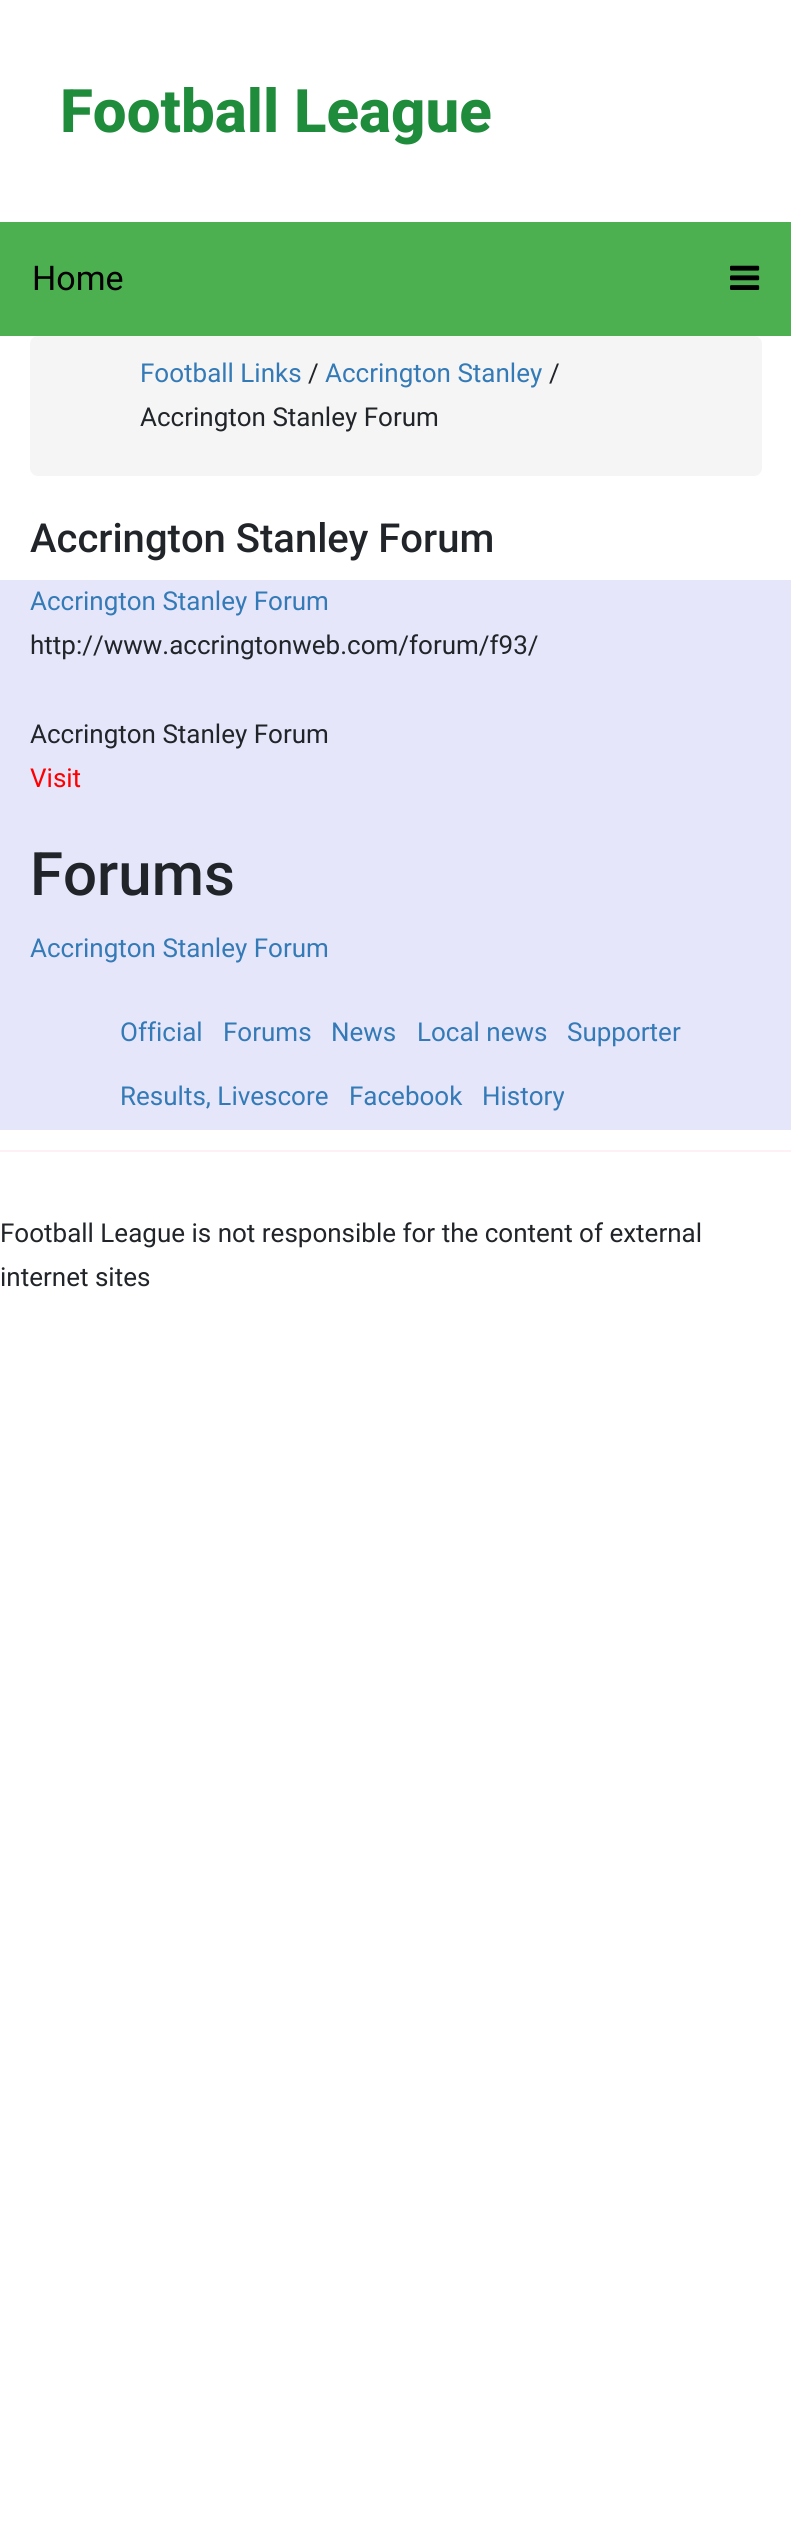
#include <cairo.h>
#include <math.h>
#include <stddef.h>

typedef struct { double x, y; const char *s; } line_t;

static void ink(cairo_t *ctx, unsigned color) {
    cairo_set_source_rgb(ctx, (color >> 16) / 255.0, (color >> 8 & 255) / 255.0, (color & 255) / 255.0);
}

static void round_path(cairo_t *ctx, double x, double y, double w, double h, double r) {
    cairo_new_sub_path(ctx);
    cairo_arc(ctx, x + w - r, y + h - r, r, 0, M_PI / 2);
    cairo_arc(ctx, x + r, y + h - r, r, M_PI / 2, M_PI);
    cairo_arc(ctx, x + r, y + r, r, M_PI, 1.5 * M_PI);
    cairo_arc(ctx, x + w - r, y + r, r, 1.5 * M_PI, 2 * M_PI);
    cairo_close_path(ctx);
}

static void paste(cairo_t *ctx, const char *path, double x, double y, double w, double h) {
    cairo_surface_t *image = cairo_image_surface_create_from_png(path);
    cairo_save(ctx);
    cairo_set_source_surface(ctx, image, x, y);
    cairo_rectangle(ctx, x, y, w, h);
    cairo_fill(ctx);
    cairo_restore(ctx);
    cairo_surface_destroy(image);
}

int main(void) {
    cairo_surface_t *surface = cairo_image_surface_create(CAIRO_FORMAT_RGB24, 791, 2536);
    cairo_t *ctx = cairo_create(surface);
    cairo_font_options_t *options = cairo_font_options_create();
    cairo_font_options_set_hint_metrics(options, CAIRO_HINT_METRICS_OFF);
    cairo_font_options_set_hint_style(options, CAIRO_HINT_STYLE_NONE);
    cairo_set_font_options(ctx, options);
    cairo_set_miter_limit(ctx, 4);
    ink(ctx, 0xFFFFFF);
    cairo_paint(ctx);
    cairo_select_font_face(ctx, "Roboto ExtraBold", CAIRO_FONT_SLANT_NORMAL, CAIRO_FONT_WEIGHT_NORMAL);
    cairo_set_font_size(ctx, 60);
    ink(ctx, 0x1F8C3C);
    cairo_move_to(ctx, 60, 132);
    cairo_show_text(ctx, "Football League");
    ink(ctx, 0x4CAF50);
    cairo_rectangle(ctx, 0, 222, 791, 114);
    cairo_fill(ctx);
    cairo_select_font_face(ctx, "Roboto", CAIRO_FONT_SLANT_NORMAL, CAIRO_FONT_WEIGHT_NORMAL);
    cairo_set_font_size(ctx, 34);
    ink(ctx, 0x000000);
    cairo_move_to(ctx, 32, 290);
    cairo_show_text(ctx, "Home");
    paste(ctx, "media/1.png", 730, 265, 30, 25);
    ink(ctx, 0xF5F5F5);
    round_path(ctx, 30, 336, 732, 140, 8);
    cairo_fill(ctx);
    cairo_set_font_size(ctx, 26);
    ink(ctx, 0x337AB7);
    cairo_move_to(ctx, 140, 382);
    cairo_show_text(ctx, "Football Links");
    ink(ctx, 0x212529);
    cairo_move_to(ctx, 308, 382);
    cairo_show_text(ctx, "/");
    ink(ctx, 0x337AB7);
    cairo_move_to(ctx, 325, 382);
    cairo_show_text(ctx, "Accrington Stanley");
    ink(ctx, 0x212529);
    cairo_move_to(ctx, 549, 382);
    cairo_show_text(ctx, "/");
    cairo_move_to(ctx, 140, 426);
    cairo_show_text(ctx, "Accrington Stanley Forum");
    cairo_select_font_face(ctx, "Roboto Medium", CAIRO_FONT_SLANT_NORMAL, CAIRO_FONT_WEIGHT_NORMAL);
    cairo_set_font_size(ctx, 40);
    cairo_move_to(ctx, 30, 552);
    cairo_show_text(ctx, "Accrington Stanley Forum");
    ink(ctx, 0xE6E6FA);
    cairo_rectangle(ctx, 0, 580, 791, 550);
    cairo_fill(ctx);
    cairo_select_font_face(ctx, "Roboto", CAIRO_FONT_SLANT_NORMAL, CAIRO_FONT_WEIGHT_NORMAL);
    cairo_set_font_size(ctx, 26);
    ink(ctx, 0x337AB7);
    cairo_move_to(ctx, 30, 610);
    cairo_show_text(ctx, "Accrington Stanley Forum");
    ink(ctx, 0x212529);
    cairo_move_to(ctx, 30, 654);
    cairo_show_text(ctx, "http://www.accringtonweb.com/forum/f93/");
    cairo_move_to(ctx, 30, 743);
    cairo_show_text(ctx, "Accrington Stanley Forum");
    ink(ctx, 0xFF0000);
    cairo_move_to(ctx, 30, 787);
    cairo_show_text(ctx, "Visit");
    cairo_select_font_face(ctx, "Roboto Medium", CAIRO_FONT_SLANT_NORMAL, CAIRO_FONT_WEIGHT_NORMAL);
    cairo_set_font_size(ctx, 60);
    ink(ctx, 0x212529);
    cairo_move_to(ctx, 30, 895);
    cairo_show_text(ctx, "Forums");
    cairo_select_font_face(ctx, "Roboto", CAIRO_FONT_SLANT_NORMAL, CAIRO_FONT_WEIGHT_NORMAL);
    cairo_set_font_size(ctx, 26);
    ink(ctx, 0x337AB7);
    {
        static const line_t items[] = {
            {30, 957, "Accrington Stanley Forum"},
            {120, 1041, "Official"},
            {223, 1041, "Forums"},
            {331, 1041, "News"},
            {417, 1041, "Local news"},
            {567, 1041, "Supporter"},
            {120, 1105, "Results, Livescore"},
            {349, 1105, "Facebook"},
            {482, 1105, "History"},
        };
        for (size_t i = 0; i < sizeof items / sizeof *items; i++) {
            cairo_move_to(ctx, items[i].x, items[i].y);
            cairo_show_text(ctx, items[i].s);
        }
    }
    ink(ctx, 0xFFF0F5);
    cairo_rectangle(ctx, 0, 1150, 791, 2);
    cairo_fill(ctx);
    ink(ctx, 0x212529);
    cairo_move_to(ctx, 0, 1242);
    cairo_show_text(ctx, "Football League is not responsible for the content of external");
    cairo_move_to(ctx, 0, 1286);
    cairo_show_text(ctx, "internet sites");
    cairo_surface_write_to_png(surface, "image.png");
    cairo_font_options_destroy(options);
    cairo_destroy(ctx);
    cairo_surface_destroy(surface);
    return 0;
}
